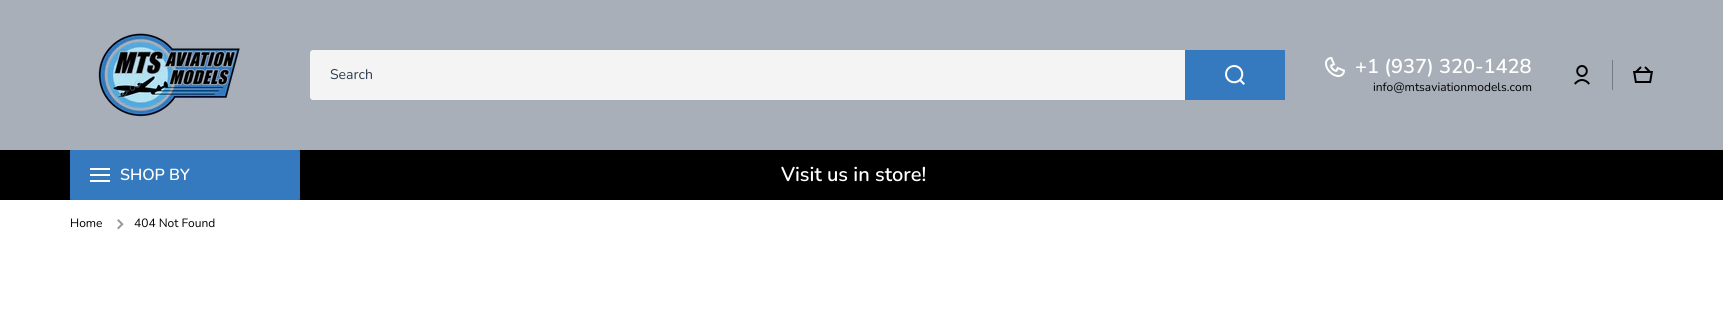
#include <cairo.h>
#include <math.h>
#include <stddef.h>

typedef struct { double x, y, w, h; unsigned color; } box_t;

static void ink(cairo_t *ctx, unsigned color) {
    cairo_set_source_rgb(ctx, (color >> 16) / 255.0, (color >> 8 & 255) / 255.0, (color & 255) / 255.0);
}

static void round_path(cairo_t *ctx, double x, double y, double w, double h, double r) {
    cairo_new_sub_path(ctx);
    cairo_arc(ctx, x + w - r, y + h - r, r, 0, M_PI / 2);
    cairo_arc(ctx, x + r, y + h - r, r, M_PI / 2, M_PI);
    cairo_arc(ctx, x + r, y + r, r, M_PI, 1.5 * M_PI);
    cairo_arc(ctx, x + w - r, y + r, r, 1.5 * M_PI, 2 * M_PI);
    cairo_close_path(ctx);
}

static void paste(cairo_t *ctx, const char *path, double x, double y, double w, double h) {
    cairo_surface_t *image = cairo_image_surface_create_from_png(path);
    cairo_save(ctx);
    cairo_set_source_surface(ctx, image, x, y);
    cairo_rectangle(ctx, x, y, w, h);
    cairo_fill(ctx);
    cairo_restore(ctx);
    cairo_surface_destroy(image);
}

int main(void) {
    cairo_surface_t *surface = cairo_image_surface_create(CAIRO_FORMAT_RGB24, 1723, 317);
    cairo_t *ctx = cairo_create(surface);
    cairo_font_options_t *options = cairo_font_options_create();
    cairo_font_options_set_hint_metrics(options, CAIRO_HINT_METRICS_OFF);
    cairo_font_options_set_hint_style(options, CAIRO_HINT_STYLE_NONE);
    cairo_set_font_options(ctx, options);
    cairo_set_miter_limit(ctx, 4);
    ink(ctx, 0xFFFFFF);
    cairo_paint(ctx);
    ink(ctx, 0xA8AFB8);
    cairo_rectangle(ctx, 0, 0, 1723, 150);
    cairo_fill(ctx);
    paste(ctx, "media/1.png", 98, 33, 142, 84);
    ink(ctx, 0xF4F4F4);
    round_path(ctx, 310, 50, 975, 50, 3);
    cairo_fill(ctx);
    cairo_select_font_face(ctx, "Nunito", CAIRO_FONT_SLANT_NORMAL, CAIRO_FONT_WEIGHT_NORMAL);
    cairo_set_font_size(ctx, 14);
    ink(ctx, 0x2C3C4D);
    cairo_move_to(ctx, 330, 79);
    cairo_show_text(ctx, "Search");
    ink(ctx, 0x357ABE);
    cairo_rectangle(ctx, 1185, 50, 100, 50);
    cairo_fill(ctx);
    paste(ctx, "media/2.png", 1225, 65, 20, 20);
    paste(ctx, "media/3.png", 1325, 57, 20, 20);
    cairo_select_font_face(ctx, "Nunito SemiBold", CAIRO_FONT_SLANT_NORMAL, CAIRO_FONT_WEIGHT_NORMAL);
    cairo_set_font_size(ctx, 20);
    ink(ctx, 0xFFFFFF);
    cairo_move_to(ctx, 1355, 73);
    cairo_show_text(ctx, "+1 (937) 320-1428");
    cairo_select_font_face(ctx, "Nunito", CAIRO_FONT_SLANT_NORMAL, CAIRO_FONT_WEIGHT_NORMAL);
    cairo_set_font_size(ctx, 12);
    ink(ctx, 0x000000);
    cairo_move_to(ctx, 1373, 91);
    cairo_show_text(ctx, "info@mtsaviationmodels.com");
    paste(ctx, "media/4.png", 1574, 65, 16, 20);
    ink(ctx, 0x767B81);
    cairo_rectangle(ctx, 1612, 60, 1, 30);
    cairo_fill(ctx);
    paste(ctx, "media/5.png", 1633, 66, 20, 17);
    ink(ctx, 0x000000);
    cairo_rectangle(ctx, 0, 150, 1723, 50);
    cairo_fill(ctx);
    ink(ctx, 0x357ABE);
    round_path(ctx, 70, 150, 230, 50, 1);
    cairo_fill(ctx);
    {
        static const box_t items[] = {
            {90, 168, 20, 2, 0xFFFFFF},
            {90, 174, 20, 2, 0xFFFFFF},
            {90, 180, 20, 2, 0xFFFFFF},
        };
        for (size_t i = 0; i < sizeof items / sizeof *items; i++) {
            ink(ctx, items[i].color);
            cairo_rectangle(ctx, items[i].x, items[i].y, items[i].w, items[i].h);
            cairo_fill(ctx);
        }
    }
    cairo_select_font_face(ctx, "Nunito SemiBold", CAIRO_FONT_SLANT_NORMAL, CAIRO_FONT_WEIGHT_NORMAL);
    cairo_set_font_size(ctx, 16);
    cairo_move_to(ctx, 120, 180);
    cairo_show_text(ctx, "SHOP BY");
    cairo_set_font_size(ctx, 20);
    cairo_move_to(ctx, 781, 181);
    cairo_show_text(ctx, "Visit us in store!");
    cairo_select_font_face(ctx, "Nunito", CAIRO_FONT_SLANT_NORMAL, CAIRO_FONT_WEIGHT_NORMAL);
    cairo_set_font_size(ctx, 12);
    ink(ctx, 0x000000);
    cairo_move_to(ctx, 70, 227);
    cairo_show_text(ctx, "Home");
    paste(ctx, "media/6.png", 117, 219, 7, 11);
    cairo_move_to(ctx, 134, 227);
    cairo_show_text(ctx, "404 Not Found");
    cairo_surface_write_to_png(surface, "image.png");
    cairo_font_options_destroy(options);
    cairo_destroy(ctx);
    cairo_surface_destroy(surface);
    return 0;
}
